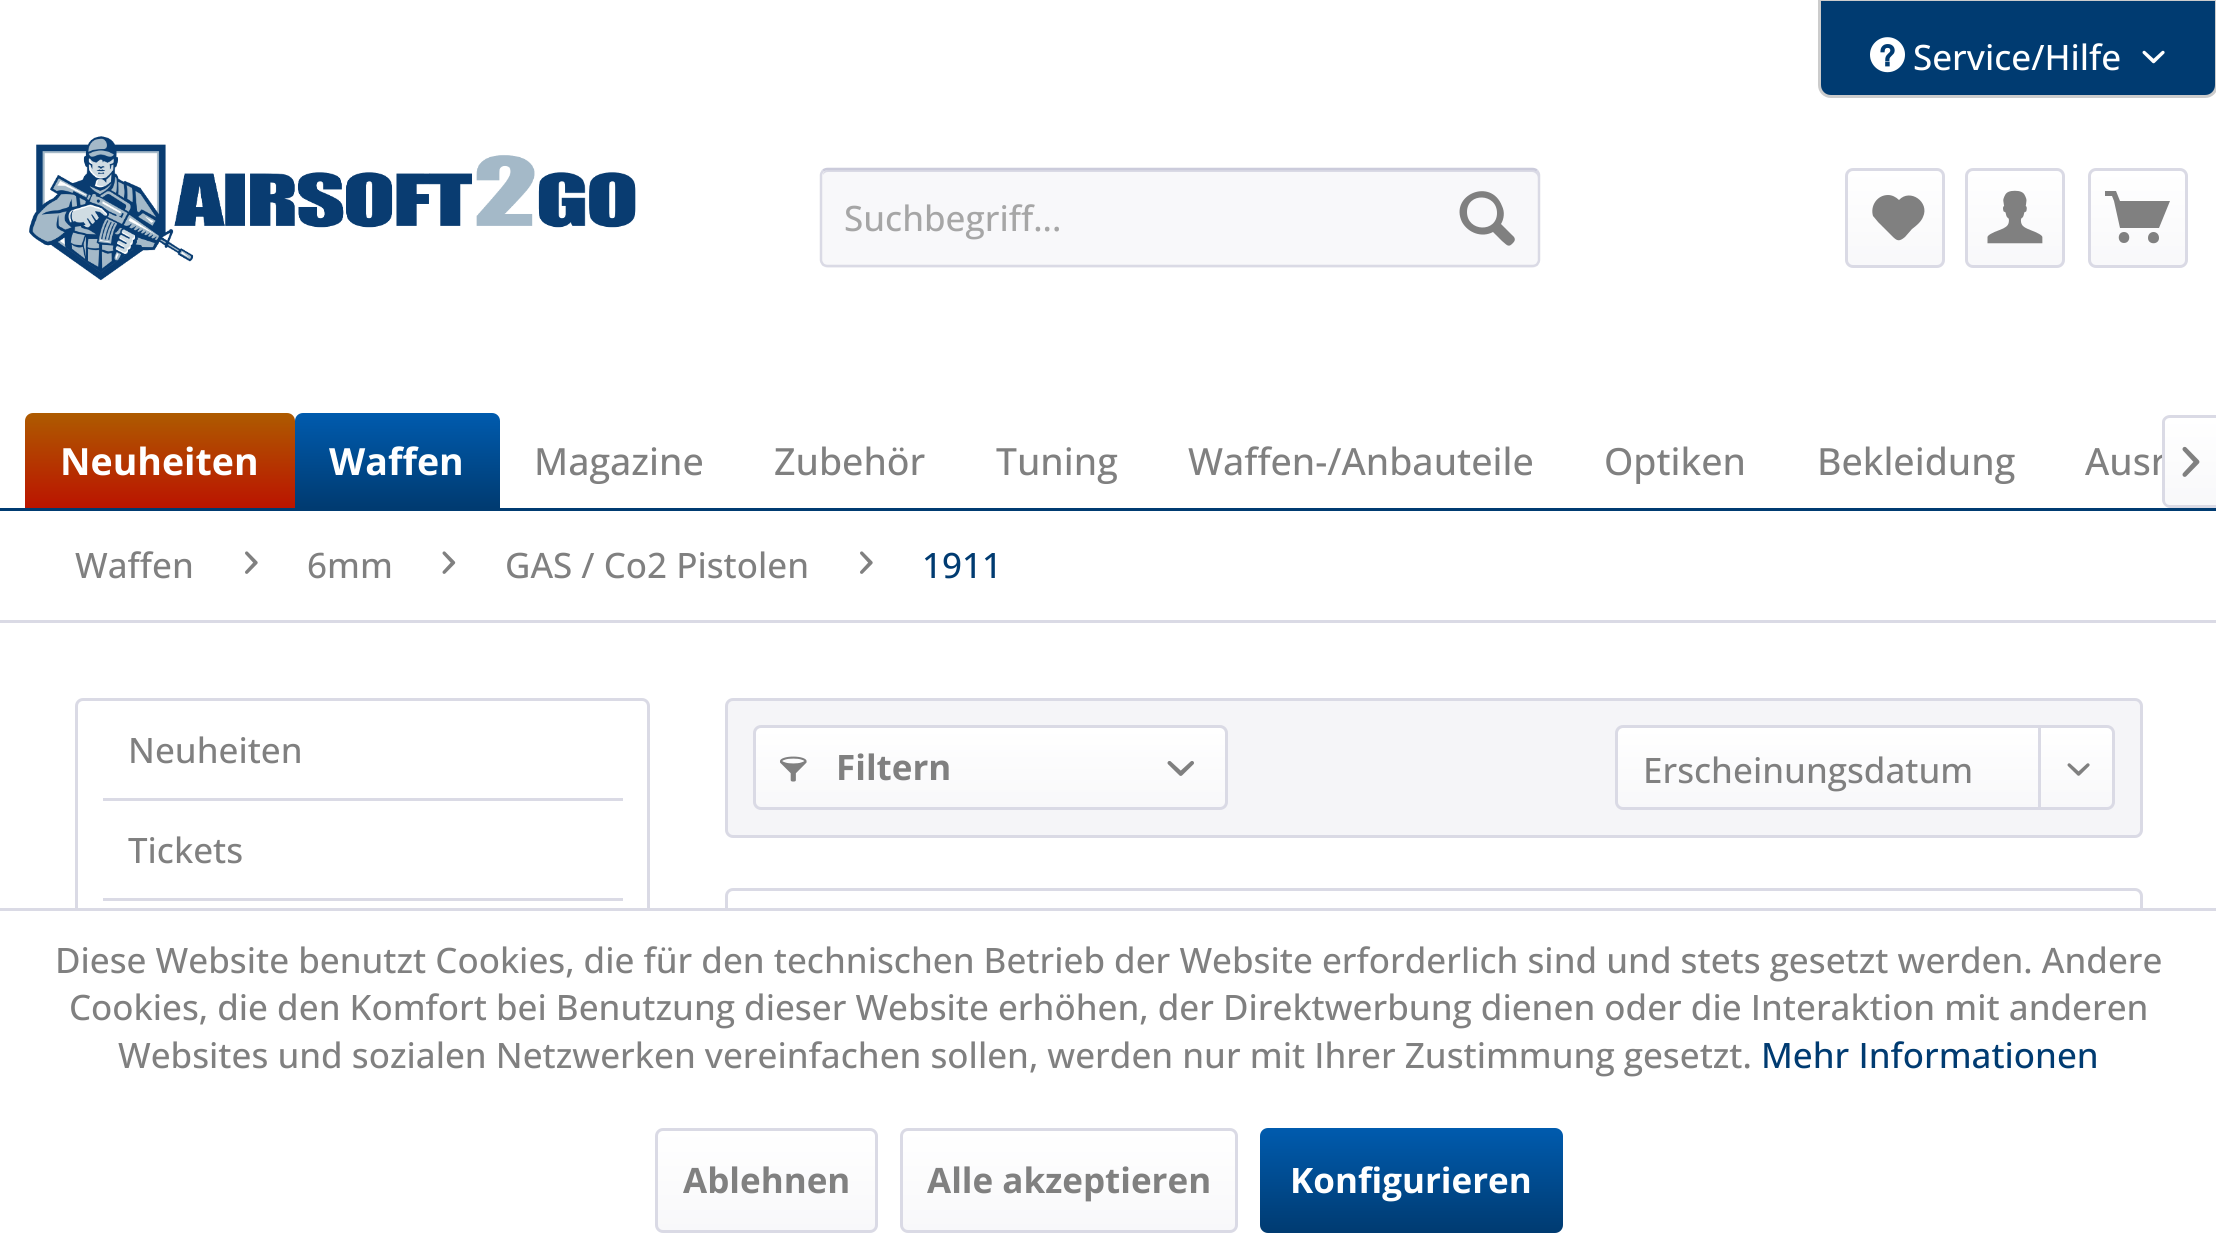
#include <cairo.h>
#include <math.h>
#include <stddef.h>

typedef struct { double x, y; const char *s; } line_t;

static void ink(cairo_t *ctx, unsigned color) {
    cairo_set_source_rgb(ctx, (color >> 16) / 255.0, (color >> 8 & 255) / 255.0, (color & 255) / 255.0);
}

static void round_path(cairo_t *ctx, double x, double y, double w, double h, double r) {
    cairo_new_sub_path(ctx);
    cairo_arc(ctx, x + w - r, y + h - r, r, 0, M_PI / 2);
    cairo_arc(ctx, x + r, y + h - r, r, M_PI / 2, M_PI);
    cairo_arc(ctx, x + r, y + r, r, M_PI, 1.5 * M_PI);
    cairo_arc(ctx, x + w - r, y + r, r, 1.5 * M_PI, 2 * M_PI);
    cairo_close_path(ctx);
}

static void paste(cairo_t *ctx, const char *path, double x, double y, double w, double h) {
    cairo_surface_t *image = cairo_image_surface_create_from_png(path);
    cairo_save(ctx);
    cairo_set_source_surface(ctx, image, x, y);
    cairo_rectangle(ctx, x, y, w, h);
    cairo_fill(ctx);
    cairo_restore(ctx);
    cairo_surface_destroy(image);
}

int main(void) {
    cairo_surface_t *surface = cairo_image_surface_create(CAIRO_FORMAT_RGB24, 2216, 1256);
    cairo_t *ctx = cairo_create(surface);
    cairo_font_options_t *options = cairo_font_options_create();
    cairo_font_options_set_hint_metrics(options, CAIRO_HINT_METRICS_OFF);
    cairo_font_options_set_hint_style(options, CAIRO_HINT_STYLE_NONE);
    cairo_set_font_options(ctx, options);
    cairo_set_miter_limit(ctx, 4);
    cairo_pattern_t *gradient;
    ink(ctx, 0xFFFFFF);
    cairo_paint(ctx);
    ink(ctx, 0x003B71);
    cairo_new_path(ctx);
    cairo_move_to(ctx, 1819.5, -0.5);
    cairo_line_to(ctx, 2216.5, -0.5);
    cairo_line_to(ctx, 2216.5, 85);
    cairo_curve_to(ctx, 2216.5, 91.5, 2211.5, 96.5, 2205, 96.5);
    cairo_line_to(ctx, 1831, 96.5);
    cairo_curve_to(ctx, 1824.5, 96.5, 1819.5, 91.5, 1819.5, 85);
    cairo_close_path(ctx);
    cairo_fill_preserve(ctx);
    ink(ctx, 0xCCCCCC);
    cairo_set_line_width(ctx, 3);
    cairo_stroke(ctx);
    paste(ctx, "media/1.png", 1870, 37, 35, 36);
    cairo_select_font_face(ctx, "Open Sans Medium", CAIRO_FONT_SLANT_NORMAL, CAIRO_FONT_WEIGHT_NORMAL);
    cairo_set_font_size(ctx, 35);
    ink(ctx, 0xFFFFFF);
    cairo_move_to(ctx, 1913, 70);
    cairo_show_text(ctx, "Service/Hilfe");
    paste(ctx, "media/2.png", 2142, 50, 23, 14);
    paste(ctx, "media/3.png", 29, 136, 607, 145);
    ink(ctx, 0xF8F8FA);
    round_path(ctx, 820, 168, 720, 100, 8);
    cairo_fill(ctx);
    ink(ctx, 0xDADAE5);
    cairo_new_path(ctx);
    cairo_move_to(ctx, 828, 172);
    cairo_line_to(ctx, 1532, 172);
    cairo_curve_to(ctx, 1535, 172, 1538, 175, 1538, 178);
    cairo_line_to(ctx, 1538, 175);
    cairo_curve_to(ctx, 1538, 172, 1536, 170, 1533, 170);
    cairo_line_to(ctx, 828, 170);
    cairo_curve_to(ctx, 825, 170, 823, 172, 823, 175);
    cairo_curve_to(ctx, 824, 173, 826, 172, 828, 172);
    cairo_close_path(ctx);
    cairo_fill(ctx);
    cairo_new_path(ctx);
    cairo_move_to(ctx, 823, 170.5);
    cairo_curve_to(ctx, 824.5, 169.5, 826, 169, 827.5, 169);
    cairo_line_to(ctx, 1532.5, 169);
    cairo_curve_to(ctx, 1534, 169, 1535.5, 169.5, 1537, 170.5);
    ink(ctx, 0xCBCBDB);
    cairo_set_line_width(ctx, 2.5);
    cairo_stroke(ctx);
    cairo_new_path(ctx);
    cairo_move_to(ctx, 1537, 170.5);
    cairo_curve_to(ctx, 1538, 172, 1539, 173.5, 1539, 175);
    cairo_line_to(ctx, 1539, 260);
    cairo_curve_to(ctx, 1539, 261.5, 1538, 263, 1537, 264.5);
    cairo_curve_to(ctx, 1535.5, 265.5, 1534, 266, 1532.5, 266);
    cairo_line_to(ctx, 827.5, 266);
    cairo_curve_to(ctx, 826, 266, 824.5, 265.5, 823, 264.5);
    cairo_curve_to(ctx, 822, 263, 821, 261.5, 821, 260);
    cairo_line_to(ctx, 821, 175);
    cairo_curve_to(ctx, 821, 173.5, 822, 172, 823, 170.5);
    ink(ctx, 0xDADAE5);
    cairo_stroke(ctx);
    ink(ctx, 0xA6A6A6);
    cairo_move_to(ctx, 844, 231);
    cairo_show_text(ctx, "Suchbegriff...");
    ink(ctx, 0x808080);
    cairo_new_path(ctx);
    cairo_move_to(ctx, 1514, 237);
    cairo_line_to(ctx, 1501, 224);
    cairo_curve_to(ctx, 1504, 219, 1505, 212, 1502, 206);
    cairo_curve_to(ctx, 1491, 177, 1449, 195, 1462, 222);
    cairo_curve_to(ctx, 1468, 233, 1482, 238, 1493, 232);
    cairo_line_to(ctx, 1502, 241);
    cairo_curve_to(ctx, 1506, 244, 1508, 248, 1512, 244);
    cairo_curve_to(ctx, 1514, 242, 1516, 240, 1514, 237);
    cairo_close_path(ctx);
    cairo_move_to(ctx, 1467, 212);
    cairo_curve_to(ctx, 1467, 192, 1497, 193, 1497, 213);
    cairo_curve_to(ctx, 1497, 233, 1467, 232, 1467, 212);
    cairo_close_path(ctx);
    cairo_fill(ctx);
    gradient = cairo_pattern_create_linear(1895, 170, 1895, 265);
    cairo_pattern_add_color_stop_rgba(gradient, 0, 1, 1, 1, 1);
    cairo_pattern_add_color_stop_rgba(gradient, 1, 0.973, 0.973, 0.98, 1);
    cairo_set_source(ctx, gradient);
    cairo_pattern_destroy(gradient);
    round_path(ctx, 1848, 170, 95, 95, 5);
    cairo_fill(ctx);
    round_path(ctx, 1846.5, 169.5, 97, 97, 6.5);
    ink(ctx, 0xDADAE5);
    cairo_set_line_width(ctx, 3);
    cairo_stroke(ctx);
    ink(ctx, 0x808080);
    cairo_new_path(ctx);
    cairo_move_to(ctx, 1888, 195);
    cairo_curve_to(ctx, 1877, 195, 1870, 206, 1873, 216);
    cairo_curve_to(ctx, 1874, 217, 1878, 222, 1878, 222);
    cairo_line_to(ctx, 1892, 236);
    cairo_curve_to(ctx, 1897, 241, 1899, 242, 1905, 237);
    cairo_line_to(ctx, 1912, 229);
    cairo_curve_to(ctx, 1916, 226, 1921, 222, 1923, 217);
    cairo_curve_to(ctx, 1930, 202, 1910, 188, 1899, 200);
    cairo_curve_to(ctx, 1896, 197, 1892, 195, 1888, 195);
    cairo_close_path(ctx);
    cairo_fill(ctx);
    gradient = cairo_pattern_create_linear(2015, 170, 2015, 265);
    cairo_pattern_add_color_stop_rgba(gradient, 0, 1, 1, 1, 1);
    cairo_pattern_add_color_stop_rgba(gradient, 1, 0.973, 0.973, 0.98, 1);
    cairo_set_source(ctx, gradient);
    cairo_pattern_destroy(gradient);
    round_path(ctx, 1968, 170, 95, 95, 5);
    cairo_fill(ctx);
    round_path(ctx, 1966.5, 169.5, 97, 97, 6.5);
    ink(ctx, 0xDADAE5);
    cairo_stroke(ctx);
    paste(ctx, "media/4.png", 1987, 190, 56, 54);
    gradient = cairo_pattern_create_linear(2138, 170, 2138, 265);
    cairo_pattern_add_color_stop_rgba(gradient, 0, 1, 1, 1, 1);
    cairo_pattern_add_color_stop_rgba(gradient, 1, 0.973, 0.973, 0.98, 1);
    cairo_set_source(ctx, gradient);
    cairo_pattern_destroy(gradient);
    round_path(ctx, 2090, 170, 95, 95, 5);
    cairo_fill(ctx);
    round_path(ctx, 2089.5, 169.5, 97, 97, 6.5);
    ink(ctx, 0xDADAE5);
    cairo_stroke(ctx);
    ink(ctx, 0x808080);
    cairo_new_path(ctx);
    cairo_move_to(ctx, 2120, 228);
    cairo_line_to(ctx, 2159, 228);
    cairo_line_to(ctx, 2170, 201);
    cairo_line_to(ctx, 2120, 201);
    cairo_line_to(ctx, 2116, 191);
    cairo_line_to(ctx, 2105, 191);
    cairo_line_to(ctx, 2105, 196);
    cairo_line_to(ctx, 2112, 196);
    cairo_line_to(ctx, 2114, 201);
    cairo_close_path(ctx);
    cairo_move_to(ctx, 2124, 232);
    cairo_curve_to(ctx, 2117, 232, 2117, 243, 2124, 243);
    cairo_curve_to(ctx, 2131, 243, 2131, 232, 2124, 232);
    cairo_close_path(ctx);
    cairo_move_to(ctx, 2159, 238);
    cairo_curve_to(ctx, 2159, 245, 2148, 245, 2148, 238);
    cairo_curve_to(ctx, 2148, 230, 2159, 230, 2159, 238);
    cairo_close_path(ctx);
    cairo_fill(ctx);
    ink(ctx, 0x003B71);
    cairo_rectangle(ctx, 0, 508, 2216, 3);
    cairo_fill(ctx);
    gradient = cairo_pattern_create_linear(160, 413, 160, 508);
    cairo_pattern_add_color_stop_rgba(gradient, 0, 0.682, 0.357, 0, 1);
    cairo_pattern_add_color_stop_rgba(gradient, 1, 0.733, 0.078, 0, 1);
    cairo_set_source(ctx, gradient);
    cairo_pattern_destroy(gradient);
    cairo_new_path(ctx);
    cairo_move_to(ctx, 33, 413);
    cairo_line_to(ctx, 287, 413);
    cairo_curve_to(ctx, 291.5, 413, 295, 416.5, 295, 421);
    cairo_line_to(ctx, 295, 508);
    cairo_line_to(ctx, 25, 508);
    cairo_line_to(ctx, 25, 421);
    cairo_curve_to(ctx, 25, 416.5, 28.5, 413, 33, 413);
    cairo_close_path(ctx);
    cairo_fill(ctx);
    cairo_select_font_face(ctx, "Open Sans", CAIRO_FONT_SLANT_NORMAL, CAIRO_FONT_WEIGHT_BOLD);
    cairo_set_font_size(ctx, 37.5);
    ink(ctx, 0xFFFFFF);
    cairo_move_to(ctx, 60, 475);
    cairo_show_text(ctx, "Neuheiten");
    gradient = cairo_pattern_create_linear(398, 413, 398, 508);
    cairo_pattern_add_color_stop_rgba(gradient, 0, 0, 0.357, 0.682, 1);
    cairo_pattern_add_color_stop_rgba(gradient, 1, 0, 0.231, 0.443, 1);
    cairo_set_source(ctx, gradient);
    cairo_pattern_destroy(gradient);
    cairo_new_path(ctx);
    cairo_move_to(ctx, 303, 413);
    cairo_line_to(ctx, 492, 413);
    cairo_curve_to(ctx, 496.5, 413, 500, 416.5, 500, 421);
    cairo_line_to(ctx, 500, 508);
    cairo_line_to(ctx, 295, 508);
    cairo_line_to(ctx, 295, 421);
    cairo_curve_to(ctx, 295, 416.5, 298.5, 413, 303, 413);
    cairo_close_path(ctx);
    cairo_fill(ctx);
    ink(ctx, 0xFFFFFF);
    cairo_move_to(ctx, 329, 475);
    cairo_show_text(ctx, "Waffen");
    cairo_select_font_face(ctx, "Open Sans Medium", CAIRO_FONT_SLANT_NORMAL, CAIRO_FONT_WEIGHT_NORMAL);
    ink(ctx, 0x808080);
    {
        static const line_t items[] = {
            {534, 475, "Magazine"},
            {774, 475, "Zubehör"},
            {996, 475, "Tuning"},
            {1188, 475, "Waffen-/Anbauteile"},
            {1604, 475, "Optiken"},
            {1817, 475, "Bekleidung"},
            {2085, 475, "Ausr"},
        };
        for (size_t i = 0; i < sizeof items / sizeof *items; i++) {
            cairo_move_to(ctx, items[i].x, items[i].y);
            cairo_show_text(ctx, items[i].s);
        }
    }
    gradient = cairo_pattern_create_linear(2191, 418, 2191, 505);
    cairo_pattern_add_color_stop_rgba(gradient, 0, 1, 1, 1, 1);
    cairo_pattern_add_color_stop_rgba(gradient, 1, 0.973, 0.973, 0.98, 1);
    cairo_set_source(ctx, gradient);
    cairo_pattern_destroy(gradient);
    cairo_new_path(ctx);
    cairo_move_to(ctx, 2170, 418);
    cairo_line_to(ctx, 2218, 418);
    cairo_line_to(ctx, 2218, 505);
    cairo_line_to(ctx, 2170, 505);
    cairo_curve_to(ctx, 2167, 505, 2165, 503, 2165, 500);
    cairo_line_to(ctx, 2165, 423);
    cairo_curve_to(ctx, 2165, 420, 2167, 418, 2170, 418);
    cairo_close_path(ctx);
    cairo_fill(ctx);
    ink(ctx, 0xDADAE5);
    cairo_set_fill_rule(ctx, CAIRO_FILL_RULE_EVEN_ODD);
    cairo_new_path(ctx);
    cairo_move_to(ctx, 2170, 415);
    cairo_line_to(ctx, 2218, 415);
    cairo_line_to(ctx, 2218, 508);
    cairo_line_to(ctx, 2170, 508);
    cairo_curve_to(ctx, 2166, 508, 2162, 504, 2162, 500);
    cairo_line_to(ctx, 2162, 422);
    cairo_curve_to(ctx, 2162, 418, 2166, 415, 2170, 415);
    cairo_close_path(ctx);
    cairo_move_to(ctx, 2170, 418);
    cairo_line_to(ctx, 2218, 418);
    cairo_line_to(ctx, 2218, 505);
    cairo_line_to(ctx, 2170, 505);
    cairo_curve_to(ctx, 2167, 505, 2165, 503, 2165, 500);
    cairo_line_to(ctx, 2165, 422);
    cairo_curve_to(ctx, 2165, 420, 2167, 418, 2170, 418);
    cairo_close_path(ctx);
    cairo_fill(ctx);
    paste(ctx, "media/5.png", 2182, 446, 18, 31);
    cairo_rectangle(ctx, 0, 620, 2216, 3);
    cairo_fill(ctx);
    cairo_set_font_size(ctx, 35);
    ink(ctx, 0x808080);
    cairo_move_to(ctx, 75, 578);
    cairo_show_text(ctx, "Waffen");
    paste(ctx, "media/6.png", 245, 551, 13, 23);
    cairo_move_to(ctx, 307, 578);
    cairo_show_text(ctx, "6mm");
    paste(ctx, "media/7.png", 442, 551, 14, 23);
    cairo_move_to(ctx, 505, 578);
    cairo_show_text(ctx, "GAS / Co2 Pistolen");
    paste(ctx, "media/6.png", 860, 551, 13, 23);
    ink(ctx, 0x003B71);
    cairo_move_to(ctx, 922, 578);
    cairo_show_text(ctx, "1911");
    round_path(ctx, 76.5, 699.5, 572, 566, 6.5);
    ink(ctx, 0xDADAE5);
    cairo_stroke(ctx);
    cairo_rectangle(ctx, 103, 798, 520, 3);
    cairo_fill(ctx);
    ink(ctx, 0x808080);
    cairo_move_to(ctx, 128, 763);
    cairo_show_text(ctx, "Neuheiten");
    ink(ctx, 0xDADAE5);
    cairo_rectangle(ctx, 103, 898, 520, 3);
    cairo_fill(ctx);
    ink(ctx, 0x808080);
    cairo_move_to(ctx, 128, 863);
    cairo_show_text(ctx, "Tickets");
    ink(ctx, 0xF5F5F8);
    round_path(ctx, 726.5, 699.5, 1415, 137, 6.5);
    cairo_fill_preserve(ctx);
    ink(ctx, 0xDADAE5);
    cairo_stroke(ctx);
    gradient = cairo_pattern_create_linear(990, 728, 990, 808);
    cairo_pattern_add_color_stop_rgba(gradient, 0, 1, 1, 1, 1);
    cairo_pattern_add_color_stop_rgba(gradient, 1, 0.973, 0.973, 0.98, 1);
    cairo_set_source(ctx, gradient);
    cairo_pattern_destroy(gradient);
    round_path(ctx, 755, 728, 470, 80, 5);
    cairo_fill(ctx);
    round_path(ctx, 754.5, 726.5, 472, 82, 6.5);
    ink(ctx, 0xDADAE5);
    cairo_stroke(ctx);
    paste(ctx, "media/8.png", 780, 756, 27, 26);
    cairo_select_font_face(ctx, "Open Sans", CAIRO_FONT_SLANT_NORMAL, CAIRO_FONT_WEIGHT_BOLD);
    ink(ctx, 0x808080);
    cairo_move_to(ctx, 836, 780);
    cairo_show_text(ctx, "Filtern");
    paste(ctx, "media/9.png", 1167, 761, 27, 15);
    gradient = cairo_pattern_create_linear(1865, 728, 1865, 808);
    cairo_pattern_add_color_stop_rgba(gradient, 0, 1, 1, 1, 1);
    cairo_pattern_add_color_stop_rgba(gradient, 1, 0.973, 0.973, 0.98, 1);
    cairo_set_source(ctx, gradient);
    cairo_pattern_destroy(gradient);
    round_path(ctx, 1618, 728, 495, 80, 5);
    cairo_fill(ctx);
    round_path(ctx, 1616.5, 726.5, 497, 82, 6.5);
    ink(ctx, 0xDADAE5);
    cairo_stroke(ctx);
    cairo_select_font_face(ctx, "Open Sans Medium", CAIRO_FONT_SLANT_NORMAL, CAIRO_FONT_WEIGHT_NORMAL);
    ink(ctx, 0x808080);
    cairo_move_to(ctx, 1643, 783);
    cairo_show_text(ctx, "Erscheinungsdatum");
    ink(ctx, 0xDADAE5);
    cairo_rectangle(ctx, 2038, 728, 3, 82);
    cairo_fill(ctx);
    paste(ctx, "media/10.png", 2067, 763, 23, 13);
    round_path(ctx, 726.5, 889.5, 1415, 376, 6.5);
    cairo_stroke(ctx);
    ink(ctx, 0xFFFFFF);
    cairo_rectangle(ctx, 75, 911, 2068, 345);
    cairo_fill(ctx);
    ink(ctx, 0xDADAE5);
    cairo_rectangle(ctx, 0, 908, 2216, 3);
    cairo_fill(ctx);
    ink(ctx, 0x808080);
    {
        static const line_t items[] = {
            {55, 973, "Diese Website benutzt Cookies, die für den technischen Betrieb der Website erforderlich sind und stets gesetzt werden. Andere"},
            {69, 1020, "Cookies, die den Komfort bei Benutzung dieser Website erhöhen, der Direktwerbung dienen oder die Interaktion mit anderen"},
            {118, 1068, "Websites und sozialen Netzwerken vereinfachen sollen, werden nur mit Ihrer Zustimmung gesetzt."},
        };
        for (size_t i = 0; i < sizeof items / sizeof *items; i++) {
            cairo_move_to(ctx, items[i].x, items[i].y);
            cairo_show_text(ctx, items[i].s);
        }
    }
    ink(ctx, 0x003B71);
    cairo_move_to(ctx, 1761, 1068);
    cairo_show_text(ctx, "Mehr Informationen");
    gradient = cairo_pattern_create_linear(766, 1130, 766, 1230);
    cairo_pattern_add_color_stop_rgba(gradient, 0, 1, 1, 1, 1);
    cairo_pattern_add_color_stop_rgba(gradient, 1, 0.973, 0.973, 0.98, 1);
    cairo_set_source(ctx, gradient);
    cairo_pattern_destroy(gradient);
    round_path(ctx, 658, 1130, 217, 100, 5);
    cairo_fill(ctx);
    round_path(ctx, 656.5, 1129.5, 220, 102, 6.5);
    ink(ctx, 0xDADAE5);
    cairo_stroke(ctx);
    cairo_select_font_face(ctx, "Open Sans", CAIRO_FONT_SLANT_NORMAL, CAIRO_FONT_WEIGHT_BOLD);
    ink(ctx, 0x808080);
    cairo_move_to(ctx, 683, 1193);
    cairo_show_text(ctx, "Ablehnen");
    gradient = cairo_pattern_create_linear(1069, 1130, 1069, 1230);
    cairo_pattern_add_color_stop_rgba(gradient, 0, 1, 1, 1, 1);
    cairo_pattern_add_color_stop_rgba(gradient, 1, 0.973, 0.973, 0.98, 1);
    cairo_set_source(ctx, gradient);
    cairo_pattern_destroy(gradient);
    round_path(ctx, 903, 1130, 332, 100, 5);
    cairo_fill(ctx);
    round_path(ctx, 901.5, 1129.5, 335, 102, 6.5);
    ink(ctx, 0xDADAE5);
    cairo_stroke(ctx);
    ink(ctx, 0x808080);
    cairo_move_to(ctx, 927, 1193);
    cairo_show_text(ctx, "Alle akzeptieren");
    gradient = cairo_pattern_create_linear(1411, 1128, 1411, 1233);
    cairo_pattern_add_color_stop_rgba(gradient, 0, 0, 0.357, 0.682, 1);
    cairo_pattern_add_color_stop_rgba(gradient, 1, 0, 0.231, 0.443, 1);
    cairo_set_source(ctx, gradient);
    cairo_pattern_destroy(gradient);
    round_path(ctx, 1260, 1128, 303, 105, 8);
    cairo_fill(ctx);
    ink(ctx, 0xFFFFFF);
    cairo_move_to(ctx, 1290, 1193);
    cairo_show_text(ctx, "Konfigurieren");
    cairo_surface_write_to_png(surface, "image.png");
    cairo_font_options_destroy(options);
    cairo_destroy(ctx);
    cairo_surface_destroy(surface);
    return 0;
}
